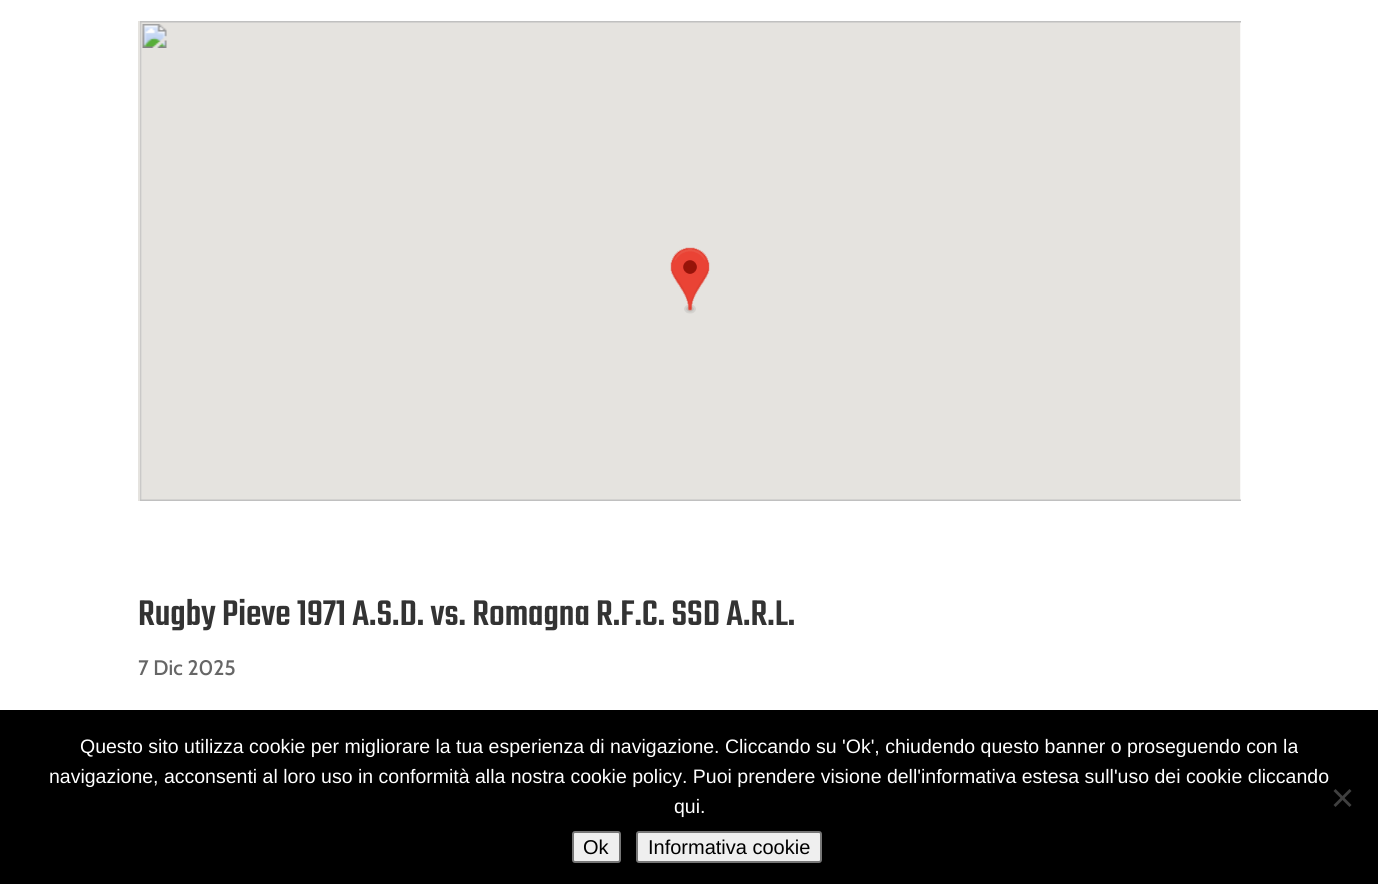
#include <cairo.h>
#include <math.h>
#include <stddef.h>

typedef struct { double x, y; const char *s; } line_t;

static void ink(cairo_t *ctx, unsigned color) {
    cairo_set_source_rgb(ctx, (color >> 16) / 255.0, (color >> 8 & 255) / 255.0, (color & 255) / 255.0);
}

static void round_path(cairo_t *ctx, double x, double y, double w, double h, double r) {
    cairo_new_sub_path(ctx);
    cairo_arc(ctx, x + w - r, y + h - r, r, 0, M_PI / 2);
    cairo_arc(ctx, x + r, y + h - r, r, M_PI / 2, M_PI);
    cairo_arc(ctx, x + r, y + r, r, M_PI, 1.5 * M_PI);
    cairo_arc(ctx, x + w - r, y + r, r, 1.5 * M_PI, 2 * M_PI);
    cairo_close_path(ctx);
}

static void paste(cairo_t *ctx, const char *path, double x, double y, double w, double h) {
    cairo_surface_t *image = cairo_image_surface_create_from_png(path);
    cairo_save(ctx);
    cairo_set_source_surface(ctx, image, x, y);
    cairo_rectangle(ctx, x, y, w, h);
    cairo_fill(ctx);
    cairo_restore(ctx);
    cairo_surface_destroy(image);
}

int main(void) {
    cairo_surface_t *surface = cairo_image_surface_create(CAIRO_FORMAT_RGB24, 1378, 884);
    cairo_t *ctx = cairo_create(surface);
    cairo_font_options_t *options = cairo_font_options_create();
    cairo_font_options_set_hint_metrics(options, CAIRO_HINT_METRICS_OFF);
    cairo_font_options_set_hint_style(options, CAIRO_HINT_STYLE_NONE);
    cairo_set_font_options(ctx, options);
    cairo_set_miter_limit(ctx, 4);
    ink(ctx, 0xFFFFFF);
    cairo_paint(ctx);
    paste(ctx, "media/1.png", 138, 21, 1103, 480);
    paste(ctx, "media/2.png", 670, 247, 40, 67);
    cairo_select_font_face(ctx, "Teko Medium", CAIRO_FONT_SLANT_NORMAL, CAIRO_FONT_WEIGHT_NORMAL);
    cairo_set_font_size(ctx, 39);
    ink(ctx, 0x333333);
    cairo_move_to(ctx, 138, 625);
    cairo_show_text(ctx, "Rugby Pieve 1971 A.S.D. vs. Romagna R.F.C. SSD A.R.L.");
    cairo_select_font_face(ctx, "Cabin Medium", CAIRO_FONT_SLANT_NORMAL, CAIRO_FONT_WEIGHT_NORMAL);
    cairo_set_font_size(ctx, 21);
    ink(ctx, 0x666666);
    cairo_move_to(ctx, 138, 675);
    cairo_show_text(ctx, "7 Dic 2025");
    ink(ctx, 0x000000);
    cairo_rectangle(ctx, 0, 710, 1378, 174);
    cairo_fill(ctx);
    cairo_select_font_face(ctx, "Liberation Sans", CAIRO_FONT_SLANT_NORMAL, CAIRO_FONT_WEIGHT_NORMAL);
    cairo_set_font_size(ctx, 19.5);
    ink(ctx, 0xFFFFFF);
    {
        static const line_t items[] = {
            {80, 753, "Questo sito utilizza cookie per migliorare la tua esperienza di navigazione. Cliccando su 'Ok', chiudendo questo banner o proseguendo con la"},
            {49, 783, "navigazione, acconsenti al loro uso in conformità alla nostra cookie policy. Puoi prendere visione dell'informativa estesa sull'uso dei cookie cliccando"},
            {674, 813, "qui."},
        };
        for (size_t i = 0; i < sizeof items / sizeof *items; i++) {
            cairo_move_to(ctx, items[i].x, items[i].y);
            cairo_show_text(ctx, items[i].s);
        }
    }
    ink(ctx, 0x404040);
    cairo_new_path(ctx);
    cairo_move_to(ctx, 1349.5, 789);
    cairo_line_to(ctx, 1351.5, 791);
    cairo_line_to(ctx, 1335.5, 807);
    cairo_line_to(ctx, 1333.5, 805);
    cairo_close_path(ctx);
    cairo_fill(ctx);
    cairo_new_path(ctx);
    cairo_move_to(ctx, 1333.5, 791);
    cairo_line_to(ctx, 1335.5, 789);
    cairo_line_to(ctx, 1351.5, 805);
    cairo_line_to(ctx, 1349.5, 807);
    cairo_close_path(ctx);
    cairo_fill(ctx);
    ink(ctx, 0xEFEFEF);
    round_path(ctx, 573, 832, 47, 30, 2);
    cairo_fill_preserve(ctx);
    ink(ctx, 0x767676);
    cairo_stroke(ctx);
    cairo_set_font_size(ctx, 20);
    ink(ctx, 0x000000);
    cairo_move_to(ctx, 583, 854);
    cairo_show_text(ctx, "Ok");
    ink(ctx, 0xEFEFEF);
    round_path(ctx, 637, 832, 184, 30, 2);
    cairo_fill_preserve(ctx);
    ink(ctx, 0x767676);
    cairo_stroke(ctx);
    ink(ctx, 0x000000);
    cairo_move_to(ctx, 648, 854);
    cairo_show_text(ctx, "Informativa cookie");
    cairo_surface_write_to_png(surface, "image.png");
    cairo_font_options_destroy(options);
    cairo_destroy(ctx);
    cairo_surface_destroy(surface);
    return 0;
}
